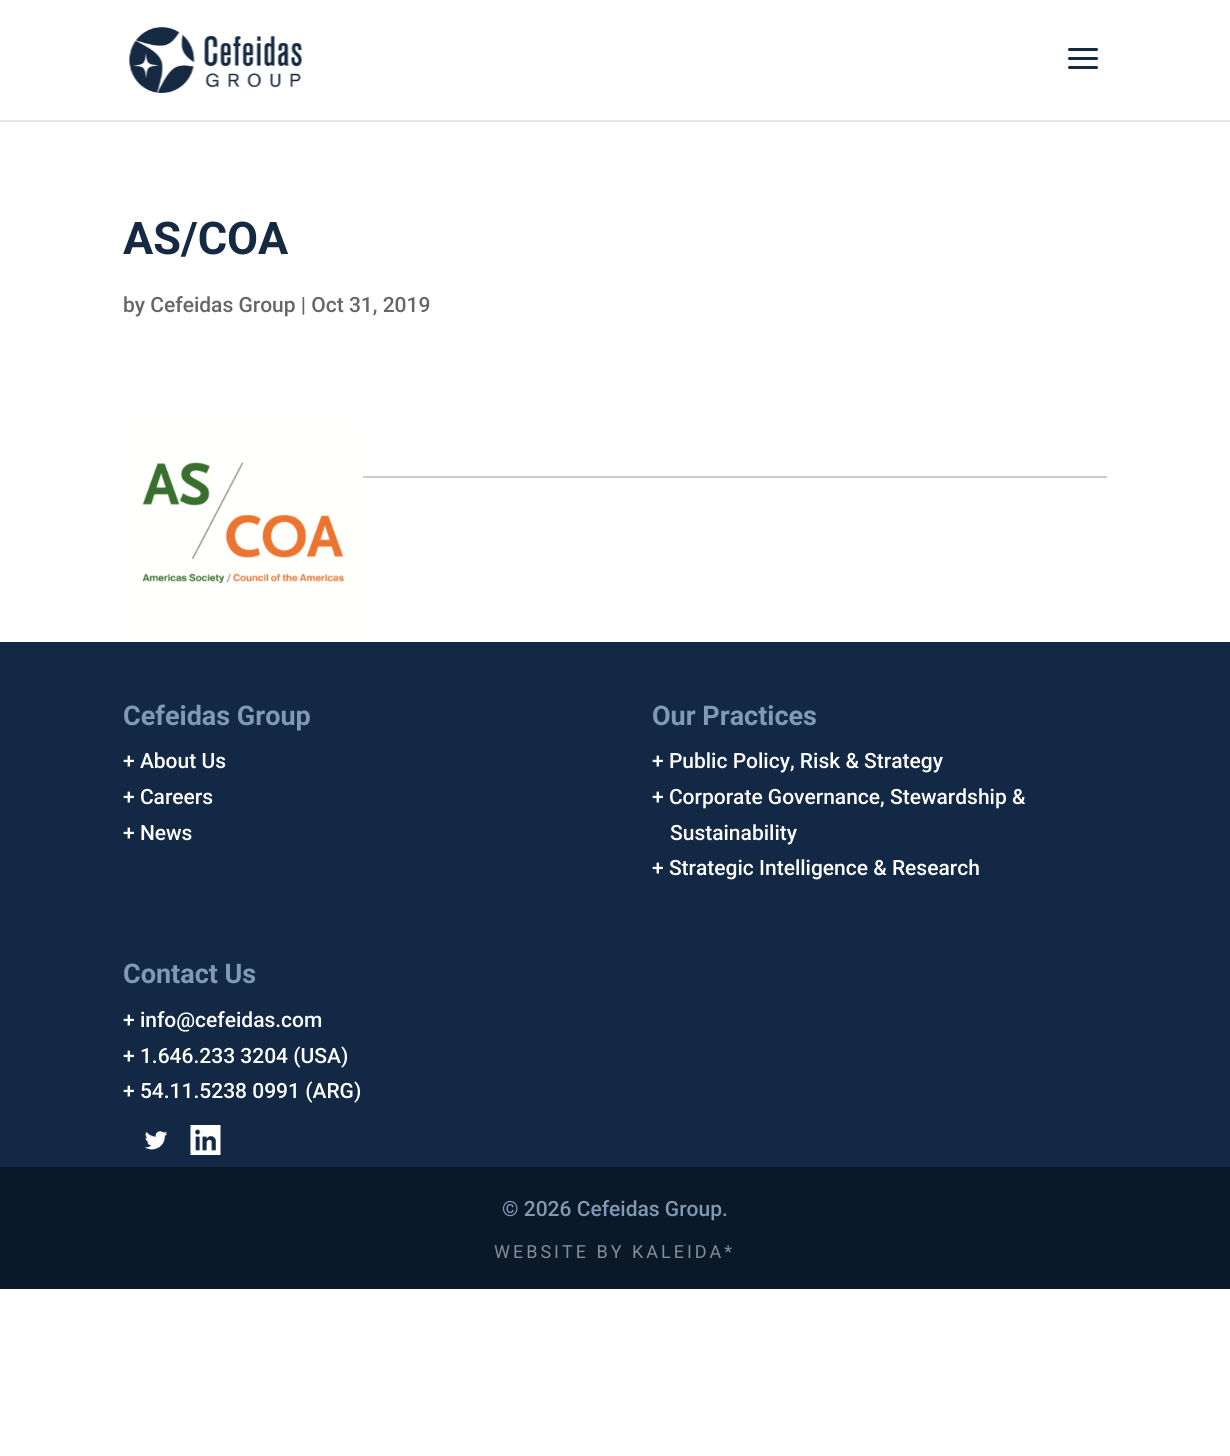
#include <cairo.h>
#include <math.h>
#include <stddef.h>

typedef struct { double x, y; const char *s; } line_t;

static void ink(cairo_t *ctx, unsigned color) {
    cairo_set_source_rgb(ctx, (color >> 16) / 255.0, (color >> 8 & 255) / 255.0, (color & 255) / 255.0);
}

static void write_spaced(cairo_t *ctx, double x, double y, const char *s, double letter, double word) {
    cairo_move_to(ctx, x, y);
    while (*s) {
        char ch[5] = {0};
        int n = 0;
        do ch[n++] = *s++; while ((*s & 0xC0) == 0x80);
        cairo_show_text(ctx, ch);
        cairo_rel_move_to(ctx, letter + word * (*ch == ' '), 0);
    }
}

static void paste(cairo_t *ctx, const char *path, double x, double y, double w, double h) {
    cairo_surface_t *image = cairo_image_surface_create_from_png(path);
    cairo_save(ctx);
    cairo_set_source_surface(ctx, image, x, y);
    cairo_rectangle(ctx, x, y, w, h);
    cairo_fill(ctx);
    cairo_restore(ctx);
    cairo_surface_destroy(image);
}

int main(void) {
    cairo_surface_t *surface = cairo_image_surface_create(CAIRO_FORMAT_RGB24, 1230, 1456);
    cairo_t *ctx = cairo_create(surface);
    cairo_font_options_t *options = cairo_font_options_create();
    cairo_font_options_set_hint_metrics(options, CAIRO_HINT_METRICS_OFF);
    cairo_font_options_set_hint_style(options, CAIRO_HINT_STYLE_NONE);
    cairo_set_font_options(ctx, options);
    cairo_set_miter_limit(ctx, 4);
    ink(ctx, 0xFFFFFF);
    cairo_paint(ctx);
    ink(ctx, 0xE6E6E6);
    cairo_rectangle(ctx, 0, 120, 1230, 2);
    cairo_fill(ctx);
    paste(ctx, "media/1.png", 128, 27, 174, 66);
    paste(ctx, "media/2.png", 1068, 48, 30, 21);
    ink(ctx, 0xCCCCCC);
    cairo_rectangle(ctx, 123, 476, 984, 2);
    cairo_fill(ctx);
    cairo_select_font_face(ctx, "Roboto", CAIRO_FONT_SLANT_NORMAL, CAIRO_FONT_WEIGHT_BOLD);
    cairo_set_font_size(ctx, 45);
    ink(ctx, 0x152943);
    cairo_move_to(ctx, 123, 254);
    cairo_show_text(ctx, "AS/COA");
    cairo_select_font_face(ctx, "Roboto Medium", CAIRO_FONT_SLANT_NORMAL, CAIRO_FONT_WEIGHT_NORMAL);
    cairo_set_font_size(ctx, 21);
    ink(ctx, 0x666666);
    cairo_move_to(ctx, 123, 312);
    cairo_show_text(ctx, "by Cefeidas Group | Oct 31, 2019");
    paste(ctx, "media/3.png", 123, 421, 240, 218);
    ink(ctx, 0x132844);
    cairo_rectangle(ctx, 0, 642, 1230, 525);
    cairo_fill(ctx);
    cairo_select_font_face(ctx, "Roboto", CAIRO_FONT_SLANT_NORMAL, CAIRO_FONT_WEIGHT_BOLD);
    cairo_set_font_size(ctx, 27);
    ink(ctx, 0x809AB4);
    cairo_move_to(ctx, 123, 725);
    cairo_show_text(ctx, "Cefeidas Group");
    cairo_select_font_face(ctx, "Roboto Medium", CAIRO_FONT_SLANT_NORMAL, CAIRO_FONT_WEIGHT_NORMAL);
    cairo_set_font_size(ctx, 21);
    ink(ctx, 0xFFFFFF);
    {
        static const line_t items[] = {
            {123, 768, "+ About Us"},
            {123, 804, "+ Careers"},
            {123, 840, "+ News"},
        };
        for (size_t i = 0; i < sizeof items / sizeof *items; i++) {
            cairo_move_to(ctx, items[i].x, items[i].y);
            cairo_show_text(ctx, items[i].s);
        }
    }
    cairo_select_font_face(ctx, "Roboto", CAIRO_FONT_SLANT_NORMAL, CAIRO_FONT_WEIGHT_BOLD);
    cairo_set_font_size(ctx, 27);
    ink(ctx, 0x809AB4);
    cairo_move_to(ctx, 652, 725);
    cairo_show_text(ctx, "Our Practices");
    cairo_select_font_face(ctx, "Roboto Medium", CAIRO_FONT_SLANT_NORMAL, CAIRO_FONT_WEIGHT_NORMAL);
    cairo_set_font_size(ctx, 21);
    ink(ctx, 0xFFFFFF);
    {
        static const line_t items[] = {
            {652, 768, "+ Public Policy, Risk & Strategy"},
            {652, 804, "+ Corporate Governance, Stewardship &"},
            {670, 840, "Sustainability"},
            {652, 875, "+ Strategic Intelligence & Research"},
        };
        for (size_t i = 0; i < sizeof items / sizeof *items; i++) {
            cairo_move_to(ctx, items[i].x, items[i].y);
            cairo_show_text(ctx, items[i].s);
        }
    }
    cairo_select_font_face(ctx, "Roboto", CAIRO_FONT_SLANT_NORMAL, CAIRO_FONT_WEIGHT_BOLD);
    cairo_set_font_size(ctx, 27);
    ink(ctx, 0x809AB4);
    cairo_move_to(ctx, 123, 983);
    cairo_show_text(ctx, "Contact Us");
    cairo_select_font_face(ctx, "Roboto Medium", CAIRO_FONT_SLANT_NORMAL, CAIRO_FONT_WEIGHT_NORMAL);
    cairo_set_font_size(ctx, 21);
    ink(ctx, 0xFFFFFF);
    {
        static const line_t items[] = {
            {123, 1027, "+ info@cefeidas.com"},
            {123, 1063, "+ 1.646.233 3204 (USA)"},
            {123, 1098, "+ 54.11.5238 0991 (ARG)"},
        };
        for (size_t i = 0; i < sizeof items / sizeof *items; i++) {
            cairo_move_to(ctx, items[i].x, items[i].y);
            cairo_show_text(ctx, items[i].s);
        }
    }
    paste(ctx, "media/4.png", 144, 1131, 24, 19);
    paste(ctx, "media/5.png", 190, 1125, 31, 30);
    ink(ctx, 0x0A1827);
    cairo_rectangle(ctx, 0, 1167, 1230, 122);
    cairo_fill(ctx);
    ink(ctx, 0x809AB4);
    cairo_move_to(ctx, 502, 1216);
    cairo_show_text(ctx, "© 2026 Cefeidas Group.");
    cairo_select_font_face(ctx, "Roboto", CAIRO_FONT_SLANT_NORMAL, CAIRO_FONT_WEIGHT_NORMAL);
    cairo_set_font_size(ctx, 18);
    ink(ctx, 0x858C93);
    write_spaced(ctx, 494, 1258, "WEBSITE BY KALEIDA*", 3, 0);
    cairo_surface_write_to_png(surface, "image.png");
    cairo_font_options_destroy(options);
    cairo_destroy(ctx);
    cairo_surface_destroy(surface);
    return 0;
}
